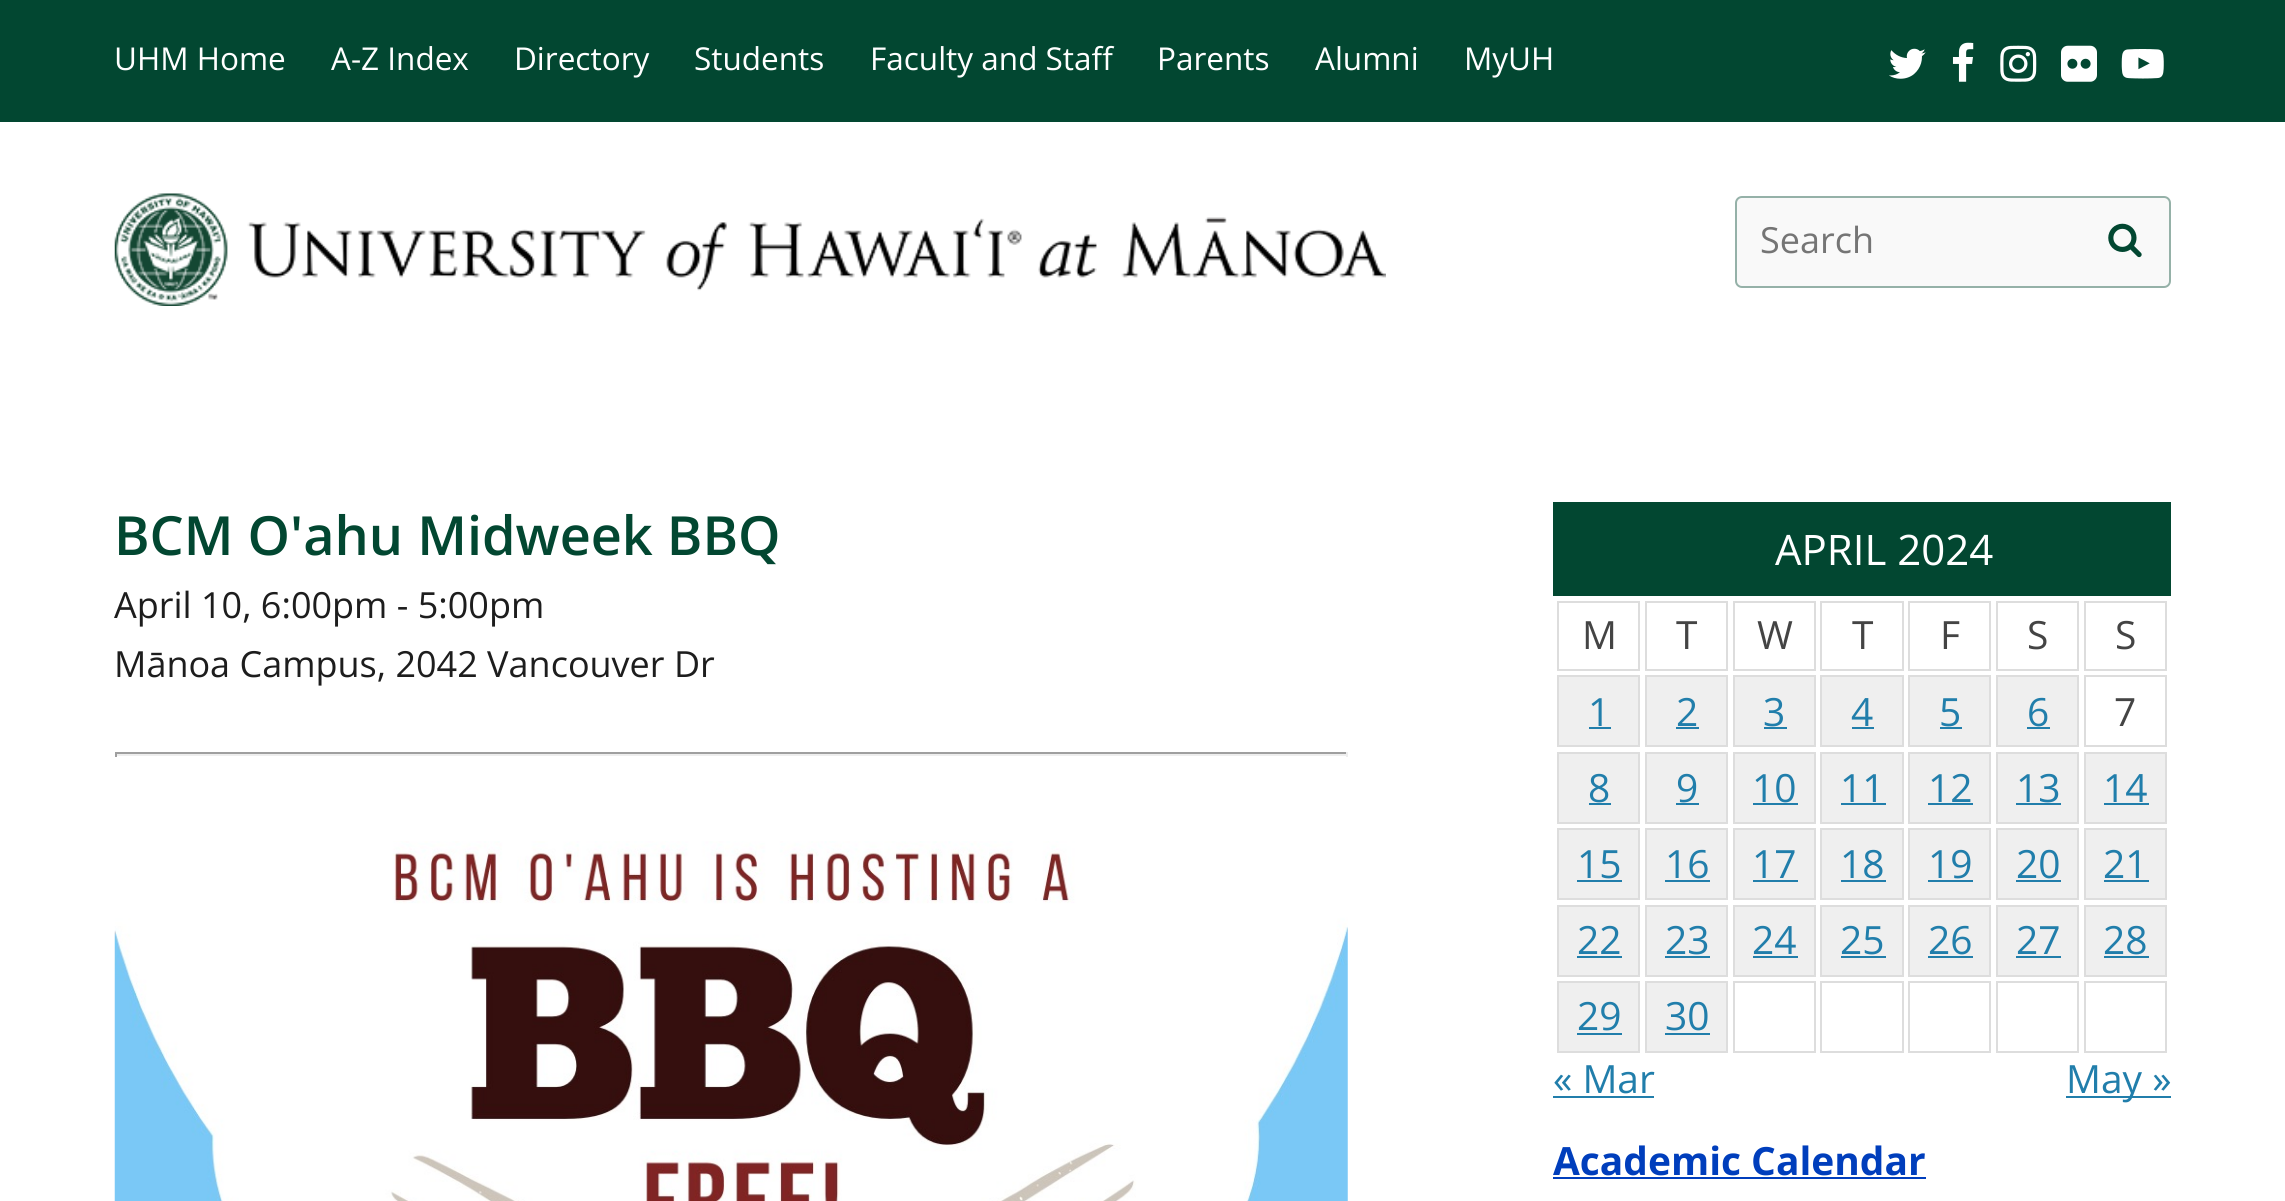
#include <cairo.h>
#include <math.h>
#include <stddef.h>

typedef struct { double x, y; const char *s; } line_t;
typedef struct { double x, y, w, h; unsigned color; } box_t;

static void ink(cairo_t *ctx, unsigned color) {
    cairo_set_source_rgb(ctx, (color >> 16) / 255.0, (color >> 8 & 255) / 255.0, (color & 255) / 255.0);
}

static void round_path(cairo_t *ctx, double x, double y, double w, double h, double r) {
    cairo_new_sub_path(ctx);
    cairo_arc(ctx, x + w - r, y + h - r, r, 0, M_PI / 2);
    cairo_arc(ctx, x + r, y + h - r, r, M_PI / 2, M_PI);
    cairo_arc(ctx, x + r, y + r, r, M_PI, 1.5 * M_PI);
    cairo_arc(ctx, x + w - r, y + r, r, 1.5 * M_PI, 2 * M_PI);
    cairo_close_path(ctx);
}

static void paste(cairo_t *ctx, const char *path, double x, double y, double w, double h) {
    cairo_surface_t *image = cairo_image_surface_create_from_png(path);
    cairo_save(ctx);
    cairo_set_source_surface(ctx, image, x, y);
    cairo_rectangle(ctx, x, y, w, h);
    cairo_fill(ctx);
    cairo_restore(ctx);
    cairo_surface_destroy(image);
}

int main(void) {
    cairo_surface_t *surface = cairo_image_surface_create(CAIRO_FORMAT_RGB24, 2285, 1201);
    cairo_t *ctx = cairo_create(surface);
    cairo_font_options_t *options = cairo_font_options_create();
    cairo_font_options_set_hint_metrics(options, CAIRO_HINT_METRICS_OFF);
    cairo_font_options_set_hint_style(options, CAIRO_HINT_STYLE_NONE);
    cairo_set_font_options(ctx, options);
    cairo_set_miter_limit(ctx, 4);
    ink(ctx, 0xFFFFFF);
    cairo_paint(ctx);
    ink(ctx, 0x024731);
    cairo_rectangle(ctx, 0, 0, 2285, 122);
    cairo_fill(ctx);
    cairo_select_font_face(ctx, "Open Sans", CAIRO_FONT_SLANT_NORMAL, CAIRO_FONT_WEIGHT_NORMAL);
    cairo_set_font_size(ctx, 31.5);
    ink(ctx, 0xFFFFFF);
    {
        static const line_t items[] = {
            {114, 70, "UHM Home"},
            {331, 70, "A-Z Index"},
            {514, 70, "Directory"},
            {694, 70, "Students"},
            {870, 70, "Faculty and Staff"},
            {1157, 70, "Parents"},
            {1315, 70, "Alumni"},
            {1464, 70, "MyUH"},
        };
        for (size_t i = 0; i < sizeof items / sizeof *items; i++) {
            cairo_move_to(ctx, items[i].x, items[i].y);
            cairo_show_text(ctx, items[i].s);
        }
    }
    paste(ctx, "media/1.png", 1889, 48, 37, 31);
    paste(ctx, "media/2.png", 1952, 42, 22, 40);
    paste(ctx, "media/3.png", 2000, 45, 37, 37);
    paste(ctx, "media/4.png", 2061, 45, 36, 37);
    paste(ctx, "media/5.png", 2121, 49, 43, 30);
    paste(ctx, "media/6.png", 114, 193, 1272, 113);
    ink(ctx, 0xF9F9F9);
    round_path(ctx, 1735, 196, 436, 92, 7);
    cairo_fill(ctx);
    round_path(ctx, 1736, 197, 434, 90, 6);
    cairo_set_source_rgba(ctx, 0.008, 0.278, 0.192, 0.4);
    cairo_stroke(ctx);
    cairo_set_font_size(ctx, 36);
    ink(ctx, 0x757575);
    cairo_move_to(ctx, 1760, 253);
    cairo_show_text(ctx, "Search");
    paste(ctx, "media/7.png", 2108, 223, 34, 35);
    cairo_select_font_face(ctx, "Open Sans SemiBold", CAIRO_FONT_SLANT_NORMAL, CAIRO_FONT_WEIGHT_NORMAL);
    cairo_set_font_size(ctx, 54);
    ink(ctx, 0x024731);
    cairo_move_to(ctx, 114, 555);
    cairo_show_text(ctx, "BCM O'ahu Midweek BBQ");
    cairo_select_font_face(ctx, "Open Sans", CAIRO_FONT_SLANT_NORMAL, CAIRO_FONT_WEIGHT_NORMAL);
    cairo_set_font_size(ctx, 36);
    ink(ctx, 0x1D1D1D);
    cairo_move_to(ctx, 114, 618);
    cairo_show_text(ctx, "April 10, 6:00pm - 5:00pm");
    cairo_move_to(ctx, 114, 677);
    cairo_show_text(ctx, "Mānoa Campus, 2042 Vancouver Dr");
    {
        static const box_t items[] = {
            {115, 752, 1233, 2, 0x9F9F9F},
            {1346, 752, 2, 5, 0xEEEEEE},
            {115, 754, 1233, 2, 0xEEEEEE},
            {115, 752, 2, 5, 0x9F9F9F},
        };
        for (size_t i = 0; i < sizeof items / sizeof *items; i++) {
            ink(ctx, items[i].color);
            cairo_rectangle(ctx, items[i].x, items[i].y, items[i].w, items[i].h);
            cairo_fill(ctx);
        }
    }
    paste(ctx, "media/8.png", 114, 841, 1234, 360);
    ink(ctx, 0x024731);
    cairo_rectangle(ctx, 1553, 502, 618, 94);
    cairo_fill(ctx);
    cairo_set_font_size(ctx, 42);
    ink(ctx, 0xFFFFFF);
    cairo_move_to(ctx, 1775, 565);
    cairo_show_text(ctx, "APRIL 2024");
    cairo_rectangle(ctx, 1558, 602, 81, 68);
    ink(ctx, 0xDDDDDD);
    cairo_stroke(ctx);
    cairo_set_font_size(ctx, 38.9);
    ink(ctx, 0x444444);
    cairo_move_to(ctx, 1582, 649);
    cairo_show_text(ctx, "M");
    cairo_rectangle(ctx, 1646, 602, 81, 68);
    ink(ctx, 0xDDDDDD);
    cairo_stroke(ctx);
    ink(ctx, 0x444444);
    cairo_move_to(ctx, 1676, 649);
    cairo_show_text(ctx, "T");
    cairo_rectangle(ctx, 1734, 602, 81, 68);
    ink(ctx, 0xDDDDDD);
    cairo_stroke(ctx);
    ink(ctx, 0x444444);
    cairo_move_to(ctx, 1757, 649);
    cairo_show_text(ctx, "W");
    cairo_rectangle(ctx, 1821, 602, 82, 68);
    ink(ctx, 0xDDDDDD);
    cairo_stroke(ctx);
    ink(ctx, 0x444444);
    cairo_move_to(ctx, 1852, 649);
    cairo_show_text(ctx, "T");
    cairo_rectangle(ctx, 1909, 602, 81, 68);
    ink(ctx, 0xDDDDDD);
    cairo_stroke(ctx);
    ink(ctx, 0x444444);
    cairo_move_to(ctx, 1940, 649);
    cairo_show_text(ctx, "F");
    cairo_rectangle(ctx, 1997, 602, 81, 68);
    ink(ctx, 0xDDDDDD);
    cairo_stroke(ctx);
    ink(ctx, 0x444444);
    cairo_move_to(ctx, 2027, 649);
    cairo_show_text(ctx, "S");
    cairo_rectangle(ctx, 2085, 602, 81, 68);
    ink(ctx, 0xDDDDDD);
    cairo_stroke(ctx);
    ink(ctx, 0x444444);
    cairo_move_to(ctx, 2115, 649);
    cairo_show_text(ctx, "S");
    ink(ctx, 0xEFEFEF);
    cairo_rectangle(ctx, 1558, 676, 81, 70);
    cairo_fill_preserve(ctx);
    ink(ctx, 0xDDDDDD);
    cairo_stroke(ctx);
    ink(ctx, 0x217EAB);
    cairo_move_to(ctx, 1588, 726);
    cairo_show_text(ctx, "1");
    cairo_rectangle(ctx, 1589, 727, 22, 2);
    cairo_fill(ctx);
    ink(ctx, 0xEFEFEF);
    cairo_rectangle(ctx, 1646, 676, 81, 70);
    cairo_fill_preserve(ctx);
    ink(ctx, 0xDDDDDD);
    cairo_stroke(ctx);
    ink(ctx, 0x217EAB);
    cairo_move_to(ctx, 1676, 726);
    cairo_show_text(ctx, "2");
    cairo_rectangle(ctx, 1676, 727, 23, 2);
    cairo_fill(ctx);
    ink(ctx, 0xEFEFEF);
    cairo_rectangle(ctx, 1734, 676, 81, 70);
    cairo_fill_preserve(ctx);
    ink(ctx, 0xDDDDDD);
    cairo_stroke(ctx);
    ink(ctx, 0x217EAB);
    cairo_move_to(ctx, 1763, 726);
    cairo_show_text(ctx, "3");
    cairo_rectangle(ctx, 1764, 727, 23, 2);
    cairo_fill(ctx);
    ink(ctx, 0xEFEFEF);
    cairo_rectangle(ctx, 1821, 676, 82, 70);
    cairo_fill_preserve(ctx);
    ink(ctx, 0xDDDDDD);
    cairo_stroke(ctx);
    ink(ctx, 0x217EAB);
    cairo_move_to(ctx, 1851, 726);
    cairo_show_text(ctx, "4");
    cairo_rectangle(ctx, 1852, 727, 22, 2);
    cairo_fill(ctx);
    ink(ctx, 0xEFEFEF);
    cairo_rectangle(ctx, 1909, 676, 81, 70);
    cairo_fill_preserve(ctx);
    ink(ctx, 0xDDDDDD);
    cairo_stroke(ctx);
    ink(ctx, 0x217EAB);
    cairo_move_to(ctx, 1939, 726);
    cairo_show_text(ctx, "5");
    cairo_rectangle(ctx, 1940, 727, 22, 2);
    cairo_fill(ctx);
    ink(ctx, 0xEFEFEF);
    cairo_rectangle(ctx, 1997, 676, 81, 70);
    cairo_fill_preserve(ctx);
    ink(ctx, 0xDDDDDD);
    cairo_stroke(ctx);
    ink(ctx, 0x217EAB);
    cairo_move_to(ctx, 2027, 726);
    cairo_show_text(ctx, "6");
    cairo_rectangle(ctx, 2027, 727, 23, 2);
    cairo_fill(ctx);
    cairo_rectangle(ctx, 2085, 676, 81, 70);
    ink(ctx, 0xDDDDDD);
    cairo_stroke(ctx);
    ink(ctx, 0x444444);
    cairo_move_to(ctx, 2114, 726);
    cairo_show_text(ctx, "7");
    ink(ctx, 0xEFEFEF);
    cairo_rectangle(ctx, 1558, 753, 81, 70);
    cairo_fill_preserve(ctx);
    ink(ctx, 0xDDDDDD);
    cairo_stroke(ctx);
    ink(ctx, 0x217EAB);
    cairo_move_to(ctx, 1588, 802);
    cairo_show_text(ctx, "8");
    cairo_rectangle(ctx, 1589, 803, 22, 2);
    cairo_fill(ctx);
    ink(ctx, 0xEFEFEF);
    cairo_rectangle(ctx, 1646, 753, 81, 70);
    cairo_fill_preserve(ctx);
    ink(ctx, 0xDDDDDD);
    cairo_stroke(ctx);
    ink(ctx, 0x217EAB);
    cairo_move_to(ctx, 1676, 802);
    cairo_show_text(ctx, "9");
    cairo_rectangle(ctx, 1676, 803, 23, 2);
    cairo_fill(ctx);
    ink(ctx, 0xEFEFEF);
    cairo_rectangle(ctx, 1734, 753, 81, 70);
    cairo_fill_preserve(ctx);
    ink(ctx, 0xDDDDDD);
    cairo_stroke(ctx);
    ink(ctx, 0x217EAB);
    cairo_move_to(ctx, 1752, 802);
    cairo_show_text(ctx, "10");
    cairo_rectangle(ctx, 1753, 803, 45, 2);
    cairo_fill(ctx);
    ink(ctx, 0xEFEFEF);
    cairo_rectangle(ctx, 1821, 753, 82, 70);
    cairo_fill_preserve(ctx);
    ink(ctx, 0xDDDDDD);
    cairo_stroke(ctx);
    ink(ctx, 0x217EAB);
    cairo_move_to(ctx, 1840, 802);
    cairo_show_text(ctx, "11");
    cairo_rectangle(ctx, 1841, 803, 45, 2);
    cairo_fill(ctx);
    ink(ctx, 0xEFEFEF);
    cairo_rectangle(ctx, 1909, 753, 81, 70);
    cairo_fill_preserve(ctx);
    ink(ctx, 0xDDDDDD);
    cairo_stroke(ctx);
    ink(ctx, 0x217EAB);
    cairo_move_to(ctx, 1928, 802);
    cairo_show_text(ctx, "12");
    cairo_rectangle(ctx, 1928, 803, 45, 2);
    cairo_fill(ctx);
    ink(ctx, 0xEFEFEF);
    cairo_rectangle(ctx, 1997, 753, 81, 70);
    cairo_fill_preserve(ctx);
    ink(ctx, 0xDDDDDD);
    cairo_stroke(ctx);
    ink(ctx, 0x217EAB);
    cairo_move_to(ctx, 2016, 802);
    cairo_show_text(ctx, "13");
    cairo_rectangle(ctx, 2016, 803, 45, 2);
    cairo_fill(ctx);
    ink(ctx, 0xEFEFEF);
    cairo_rectangle(ctx, 2085, 753, 81, 70);
    cairo_fill_preserve(ctx);
    ink(ctx, 0xDDDDDD);
    cairo_stroke(ctx);
    ink(ctx, 0x217EAB);
    cairo_move_to(ctx, 2103, 802);
    cairo_show_text(ctx, "14");
    cairo_rectangle(ctx, 2104, 803, 45, 2);
    cairo_fill(ctx);
    ink(ctx, 0xEFEFEF);
    cairo_rectangle(ctx, 1558, 829, 81, 70);
    cairo_fill_preserve(ctx);
    ink(ctx, 0xDDDDDD);
    cairo_stroke(ctx);
    ink(ctx, 0x217EAB);
    cairo_move_to(ctx, 1577, 878);
    cairo_show_text(ctx, "15");
    cairo_rectangle(ctx, 1577, 880, 45, 2);
    cairo_fill(ctx);
    ink(ctx, 0xEFEFEF);
    cairo_rectangle(ctx, 1646, 829, 81, 70);
    cairo_fill_preserve(ctx);
    ink(ctx, 0xDDDDDD);
    cairo_stroke(ctx);
    ink(ctx, 0x217EAB);
    cairo_move_to(ctx, 1665, 878);
    cairo_show_text(ctx, "16");
    cairo_rectangle(ctx, 1665, 880, 45, 2);
    cairo_fill(ctx);
    ink(ctx, 0xEFEFEF);
    cairo_rectangle(ctx, 1734, 829, 81, 70);
    cairo_fill_preserve(ctx);
    ink(ctx, 0xDDDDDD);
    cairo_stroke(ctx);
    ink(ctx, 0x217EAB);
    cairo_move_to(ctx, 1752, 878);
    cairo_show_text(ctx, "17");
    cairo_rectangle(ctx, 1753, 880, 45, 2);
    cairo_fill(ctx);
    ink(ctx, 0xEFEFEF);
    cairo_rectangle(ctx, 1821, 829, 82, 70);
    cairo_fill_preserve(ctx);
    ink(ctx, 0xDDDDDD);
    cairo_stroke(ctx);
    ink(ctx, 0x217EAB);
    cairo_move_to(ctx, 1840, 878);
    cairo_show_text(ctx, "18");
    cairo_rectangle(ctx, 1841, 880, 45, 2);
    cairo_fill(ctx);
    ink(ctx, 0xEFEFEF);
    cairo_rectangle(ctx, 1909, 829, 81, 70);
    cairo_fill_preserve(ctx);
    ink(ctx, 0xDDDDDD);
    cairo_stroke(ctx);
    ink(ctx, 0x217EAB);
    cairo_move_to(ctx, 1928, 878);
    cairo_show_text(ctx, "19");
    cairo_rectangle(ctx, 1928, 880, 45, 2);
    cairo_fill(ctx);
    ink(ctx, 0xEFEFEF);
    cairo_rectangle(ctx, 1997, 829, 81, 70);
    cairo_fill_preserve(ctx);
    ink(ctx, 0xDDDDDD);
    cairo_stroke(ctx);
    ink(ctx, 0x217EAB);
    cairo_move_to(ctx, 2016, 878);
    cairo_show_text(ctx, "20");
    cairo_rectangle(ctx, 2016, 880, 45, 2);
    cairo_fill(ctx);
    ink(ctx, 0xEFEFEF);
    cairo_rectangle(ctx, 2085, 829, 81, 70);
    cairo_fill_preserve(ctx);
    ink(ctx, 0xDDDDDD);
    cairo_stroke(ctx);
    ink(ctx, 0x217EAB);
    cairo_move_to(ctx, 2103, 878);
    cairo_show_text(ctx, "21");
    cairo_rectangle(ctx, 2104, 880, 45, 2);
    cairo_fill(ctx);
    ink(ctx, 0xEFEFEF);
    cairo_rectangle(ctx, 1558, 906, 81, 70);
    cairo_fill_preserve(ctx);
    ink(ctx, 0xDDDDDD);
    cairo_stroke(ctx);
    ink(ctx, 0x217EAB);
    cairo_move_to(ctx, 1577, 954);
    cairo_show_text(ctx, "22");
    cairo_rectangle(ctx, 1577, 956, 45, 2);
    cairo_fill(ctx);
    ink(ctx, 0xEFEFEF);
    cairo_rectangle(ctx, 1646, 906, 81, 70);
    cairo_fill_preserve(ctx);
    ink(ctx, 0xDDDDDD);
    cairo_stroke(ctx);
    ink(ctx, 0x217EAB);
    cairo_move_to(ctx, 1665, 954);
    cairo_show_text(ctx, "23");
    cairo_rectangle(ctx, 1665, 956, 45, 2);
    cairo_fill(ctx);
    ink(ctx, 0xEFEFEF);
    cairo_rectangle(ctx, 1734, 906, 81, 70);
    cairo_fill_preserve(ctx);
    ink(ctx, 0xDDDDDD);
    cairo_stroke(ctx);
    ink(ctx, 0x217EAB);
    cairo_move_to(ctx, 1752, 954);
    cairo_show_text(ctx, "24");
    cairo_rectangle(ctx, 1753, 956, 45, 2);
    cairo_fill(ctx);
    ink(ctx, 0xEFEFEF);
    cairo_rectangle(ctx, 1821, 906, 82, 70);
    cairo_fill_preserve(ctx);
    ink(ctx, 0xDDDDDD);
    cairo_stroke(ctx);
    ink(ctx, 0x217EAB);
    cairo_move_to(ctx, 1840, 954);
    cairo_show_text(ctx, "25");
    cairo_rectangle(ctx, 1841, 956, 45, 2);
    cairo_fill(ctx);
    ink(ctx, 0xEFEFEF);
    cairo_rectangle(ctx, 1909, 906, 81, 70);
    cairo_fill_preserve(ctx);
    ink(ctx, 0xDDDDDD);
    cairo_stroke(ctx);
    ink(ctx, 0x217EAB);
    cairo_move_to(ctx, 1928, 954);
    cairo_show_text(ctx, "26");
    cairo_rectangle(ctx, 1928, 956, 45, 2);
    cairo_fill(ctx);
    ink(ctx, 0xEFEFEF);
    cairo_rectangle(ctx, 1997, 906, 81, 70);
    cairo_fill_preserve(ctx);
    ink(ctx, 0xDDDDDD);
    cairo_stroke(ctx);
    ink(ctx, 0x217EAB);
    cairo_move_to(ctx, 2016, 954);
    cairo_show_text(ctx, "27");
    cairo_rectangle(ctx, 2016, 956, 45, 2);
    cairo_fill(ctx);
    ink(ctx, 0xEFEFEF);
    cairo_rectangle(ctx, 2085, 906, 81, 70);
    cairo_fill_preserve(ctx);
    ink(ctx, 0xDDDDDD);
    cairo_stroke(ctx);
    ink(ctx, 0x217EAB);
    cairo_move_to(ctx, 2103, 954);
    cairo_show_text(ctx, "28");
    cairo_rectangle(ctx, 2104, 956, 45, 2);
    cairo_fill(ctx);
    ink(ctx, 0xEFEFEF);
    cairo_rectangle(ctx, 1558, 982, 81, 70);
    cairo_fill_preserve(ctx);
    ink(ctx, 0xDDDDDD);
    cairo_stroke(ctx);
    ink(ctx, 0x217EAB);
    cairo_move_to(ctx, 1577, 1030);
    cairo_show_text(ctx, "29");
    cairo_rectangle(ctx, 1577, 1033, 45, 2);
    cairo_fill(ctx);
    ink(ctx, 0xEFEFEF);
    cairo_rectangle(ctx, 1646, 982, 81, 70);
    cairo_fill_preserve(ctx);
    ink(ctx, 0xDDDDDD);
    cairo_stroke(ctx);
    ink(ctx, 0x217EAB);
    cairo_move_to(ctx, 1665, 1030);
    cairo_show_text(ctx, "30");
    cairo_rectangle(ctx, 1665, 1033, 45, 2);
    cairo_fill(ctx);
    cairo_rectangle(ctx, 1734, 982, 81, 70);
    ink(ctx, 0xDDDDDD);
    cairo_stroke(ctx);
    cairo_rectangle(ctx, 1821, 982, 82, 70);
    cairo_stroke(ctx);
    cairo_rectangle(ctx, 1909, 982, 81, 70);
    cairo_stroke(ctx);
    cairo_rectangle(ctx, 1997, 982, 81, 70);
    cairo_stroke(ctx);
    cairo_rectangle(ctx, 2085, 982, 81, 70);
    cairo_stroke(ctx);
    ink(ctx, 0x217EAB);
    cairo_move_to(ctx, 1553, 1093);
    cairo_show_text(ctx, "« Mar");
    cairo_rectangle(ctx, 1553, 1096, 101, 2);
    cairo_fill(ctx);
    cairo_rectangle(ctx, 2066, 1096, 105, 2);
    cairo_fill(ctx);
    cairo_move_to(ctx, 2066, 1093);
    cairo_show_text(ctx, "May »");
    cairo_select_font_face(ctx, "Open Sans", CAIRO_FONT_SLANT_NORMAL, CAIRO_FONT_WEIGHT_BOLD);
    ink(ctx, 0x003EBC);
    cairo_move_to(ctx, 1553, 1175);
    cairo_show_text(ctx, "Academic Calendar");
    cairo_rectangle(ctx, 1553, 1177, 373, 2);
    cairo_fill(ctx);
    cairo_surface_write_to_png(surface, "image.png");
    cairo_font_options_destroy(options);
    cairo_destroy(ctx);
    cairo_surface_destroy(surface);
    return 0;
}
